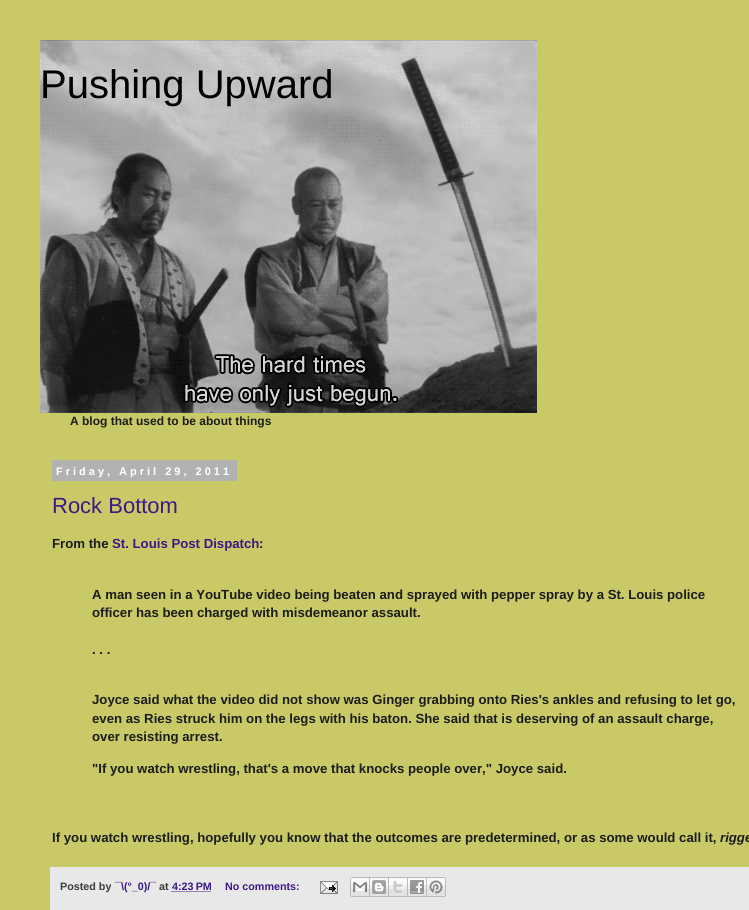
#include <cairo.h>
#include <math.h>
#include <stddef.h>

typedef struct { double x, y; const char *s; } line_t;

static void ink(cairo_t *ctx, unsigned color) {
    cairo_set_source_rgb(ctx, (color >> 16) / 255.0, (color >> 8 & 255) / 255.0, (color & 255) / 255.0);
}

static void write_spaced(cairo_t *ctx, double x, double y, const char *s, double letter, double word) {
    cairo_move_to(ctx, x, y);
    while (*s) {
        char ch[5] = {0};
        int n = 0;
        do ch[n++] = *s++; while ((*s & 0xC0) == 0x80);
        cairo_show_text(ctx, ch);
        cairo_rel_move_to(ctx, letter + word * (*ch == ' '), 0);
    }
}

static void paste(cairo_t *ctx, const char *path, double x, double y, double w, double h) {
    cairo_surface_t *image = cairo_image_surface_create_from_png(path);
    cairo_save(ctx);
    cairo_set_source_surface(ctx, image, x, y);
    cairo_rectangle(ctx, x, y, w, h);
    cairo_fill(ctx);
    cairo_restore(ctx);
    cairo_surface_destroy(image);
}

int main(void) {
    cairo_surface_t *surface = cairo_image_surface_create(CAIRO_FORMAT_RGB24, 749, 910);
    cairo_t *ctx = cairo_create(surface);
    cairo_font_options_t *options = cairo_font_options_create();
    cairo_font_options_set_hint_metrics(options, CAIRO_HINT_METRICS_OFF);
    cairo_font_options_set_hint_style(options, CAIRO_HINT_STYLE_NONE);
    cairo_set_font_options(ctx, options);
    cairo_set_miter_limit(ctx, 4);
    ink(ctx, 0xC9C967);
    cairo_paint(ctx);
    paste(ctx, "media/1.png", 40, 40, 497, 373);
    cairo_select_font_face(ctx, "Liberation Sans", CAIRO_FONT_SLANT_NORMAL, CAIRO_FONT_WEIGHT_NORMAL);
    cairo_set_font_size(ctx, 40);
    ink(ctx, 0x000000);
    cairo_move_to(ctx, 40, 98);
    cairo_show_text(ctx, "Pushing Upward");
    cairo_select_font_face(ctx, "Liberation Sans", CAIRO_FONT_SLANT_NORMAL, CAIRO_FONT_WEIGHT_BOLD);
    cairo_set_font_size(ctx, 12);
    ink(ctx, 0x1D1D1D);
    cairo_move_to(ctx, 70, 425);
    cairo_show_text(ctx, "A blog that used to be about things");
    ink(ctx, 0xB2B2B2);
    cairo_rectangle(ctx, 52, 460, 185, 21);
    cairo_fill(ctx);
    cairo_set_font_size(ctx, 11);
    ink(ctx, 0xFFFFFF);
    write_spaced(ctx, 56, 475, "Friday, April 29, 2011", 3, 0);
    cairo_select_font_face(ctx, "Liberation Sans", CAIRO_FONT_SLANT_NORMAL, CAIRO_FONT_WEIGHT_NORMAL);
    cairo_set_font_size(ctx, 22);
    ink(ctx, 0x3D1886);
    cairo_move_to(ctx, 52, 513);
    cairo_show_text(ctx, "Rock Bottom");
    cairo_select_font_face(ctx, "Liberation Sans", CAIRO_FONT_SLANT_NORMAL, CAIRO_FONT_WEIGHT_BOLD);
    cairo_set_font_size(ctx, 13.2);
    ink(ctx, 0x1D1D1D);
    cairo_move_to(ctx, 52, 548);
    cairo_show_text(ctx, "From the");
    ink(ctx, 0x3D1886);
    cairo_move_to(ctx, 112, 548);
    cairo_show_text(ctx, "St. Louis Post Dispatch");
    ink(ctx, 0x1D1D1D);
    {
        static const line_t items[] = {
            {259, 548, ":"},
            {92, 599, "A man seen in a YouTube video being beaten and sprayed with pepper spray by a St. Louis police"},
            {92, 617, "officer has been charged with misdemeanor assault."},
            {92, 654, ". . ."},
            {92, 704, "Joyce said what the video did not show was Ginger grabbing onto Ries's ankles and refusing to let go,"},
            {92, 723, "even as Ries struck him on the legs with his baton. She said that is deserving of an assault charge,"},
            {92, 741, "over resisting arrest."},
            {92, 773, "\"If you watch wrestling, that's a move that knocks people over,\" Joyce said."},
            {52, 842, "If you watch wrestling, hopefully you know that the outcomes are predetermined, or as some would call it,"},
        };
        for (size_t i = 0; i < sizeof items / sizeof *items; i++) {
            cairo_move_to(ctx, items[i].x, items[i].y);
            cairo_show_text(ctx, items[i].s);
        }
    }
    cairo_select_font_face(ctx, "Liberation Sans", CAIRO_FONT_SLANT_ITALIC, CAIRO_FONT_WEIGHT_BOLD);
    cairo_move_to(ctx, 720, 842);
    cairo_show_text(ctx, "rigge");
    ink(ctx, 0xE8E8E8);
    cairo_rectangle(ctx, 50, 867, 699, 43);
    cairo_fill(ctx);
    cairo_select_font_face(ctx, "Liberation Sans", CAIRO_FONT_SLANT_NORMAL, CAIRO_FONT_WEIGHT_BOLD);
    cairo_set_font_size(ctx, 10.75);
    ink(ctx, 0x3B3B3B);
    cairo_move_to(ctx, 60, 890);
    cairo_show_text(ctx, "Posted by");
    ink(ctx, 0x3D1886);
    cairo_move_to(ctx, 115, 890);
    cairo_show_text(ctx, "¯\\(°_0)/¯");
    ink(ctx, 0x3B3B3B);
    cairo_move_to(ctx, 159, 890);
    cairo_show_text(ctx, "at");
    ink(ctx, 0x3D1886);
    cairo_move_to(ctx, 172, 890);
    cairo_show_text(ctx, "4:23 PM");
    cairo_new_path(ctx);
    cairo_move_to(ctx, 171.5, 891.5);
    cairo_line_to(ctx, 211.5, 891.5);
    cairo_set_line_width(ctx, 1);
    cairo_set_dash(ctx, (double[]){1, 1}, 2, 0);
    cairo_stroke(ctx);
    cairo_move_to(ctx, 225, 890);
    cairo_show_text(ctx, "No comments:");
    paste(ctx, "media/2.png", 320, 881, 18, 13);
    paste(ctx, "media/3.png", 350, 877, 20, 20);
    paste(ctx, "media/4.png", 370, 877, 19, 20);
    paste(ctx, "media/5.png", 389, 877, 19, 20);
    paste(ctx, "media/6.png", 408, 877, 19, 20);
    paste(ctx, "media/7.png", 427, 877, 19, 20);
    cairo_surface_write_to_png(surface, "image.png");
    cairo_font_options_destroy(options);
    cairo_destroy(ctx);
    cairo_surface_destroy(surface);
    return 0;
}
